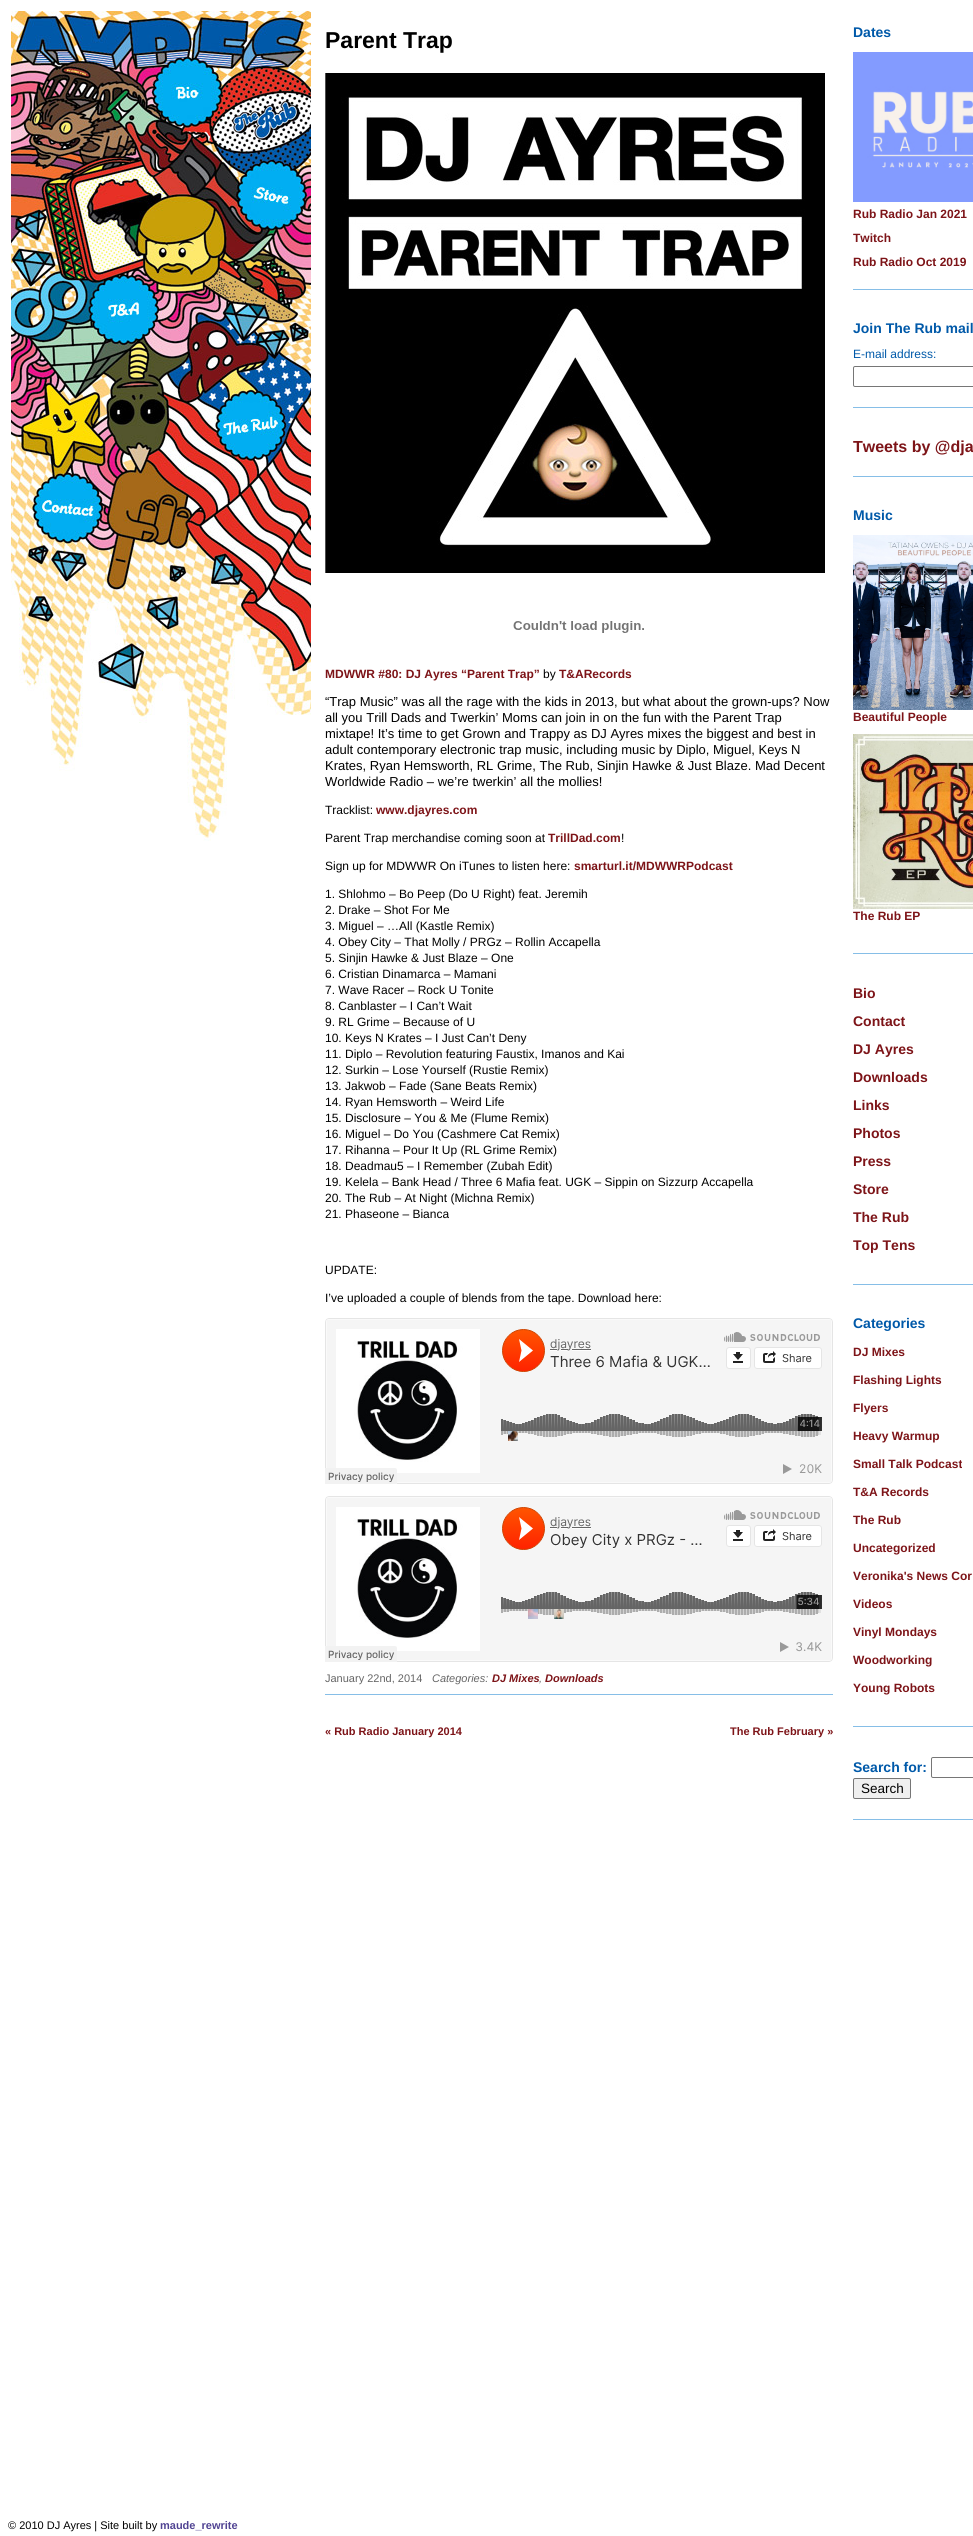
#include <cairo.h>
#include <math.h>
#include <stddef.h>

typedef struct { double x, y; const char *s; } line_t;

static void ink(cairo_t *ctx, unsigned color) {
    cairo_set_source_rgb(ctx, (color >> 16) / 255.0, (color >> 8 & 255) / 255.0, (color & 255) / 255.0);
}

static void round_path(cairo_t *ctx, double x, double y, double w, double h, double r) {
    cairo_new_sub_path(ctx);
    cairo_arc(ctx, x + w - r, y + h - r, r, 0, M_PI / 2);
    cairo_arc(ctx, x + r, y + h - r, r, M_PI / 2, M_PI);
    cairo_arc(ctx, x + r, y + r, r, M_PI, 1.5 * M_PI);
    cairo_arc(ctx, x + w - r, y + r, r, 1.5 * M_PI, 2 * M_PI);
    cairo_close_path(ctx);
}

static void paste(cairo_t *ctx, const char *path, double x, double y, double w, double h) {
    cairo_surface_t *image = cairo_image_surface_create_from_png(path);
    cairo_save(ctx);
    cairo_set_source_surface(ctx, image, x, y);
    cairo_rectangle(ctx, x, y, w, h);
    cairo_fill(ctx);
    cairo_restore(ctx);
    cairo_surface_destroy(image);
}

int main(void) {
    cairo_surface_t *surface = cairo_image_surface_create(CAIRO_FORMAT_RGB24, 973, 2536);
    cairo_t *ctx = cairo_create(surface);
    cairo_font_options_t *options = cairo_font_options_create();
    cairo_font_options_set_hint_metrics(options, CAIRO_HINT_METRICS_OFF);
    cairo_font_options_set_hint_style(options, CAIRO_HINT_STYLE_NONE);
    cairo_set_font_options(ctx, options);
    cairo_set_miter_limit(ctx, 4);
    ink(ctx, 0xFFFFFF);
    cairo_paint(ctx);
    paste(ctx, "media/1.png", 11, 11, 300, 830);
    ink(ctx, 0x86BEE7);
    cairo_rectangle(ctx, 325, 1694, 508, 1);
    cairo_fill(ctx);
    cairo_select_font_face(ctx, "Liberation Sans", CAIRO_FONT_SLANT_NORMAL, CAIRO_FONT_WEIGHT_BOLD);
    cairo_set_font_size(ctx, 23);
    ink(ctx, 0x000000);
    cairo_move_to(ctx, 325, 48);
    cairo_show_text(ctx, "Parent Trap");
    paste(ctx, "media/2.png", 325, 73, 500, 500);
    paste(ctx, "media/3.png", 513, 621, 131, 12);
    cairo_set_font_size(ctx, 12);
    ink(ctx, 0x7D1418);
    cairo_move_to(ctx, 325, 678);
    cairo_show_text(ctx, "MDWWR #80: DJ Ayres “Parent Trap”");
    cairo_select_font_face(ctx, "Liberation Sans", CAIRO_FONT_SLANT_NORMAL, CAIRO_FONT_WEIGHT_NORMAL);
    ink(ctx, 0x000000);
    cairo_move_to(ctx, 543, 678);
    cairo_show_text(ctx, "by");
    cairo_select_font_face(ctx, "Liberation Sans", CAIRO_FONT_SLANT_NORMAL, CAIRO_FONT_WEIGHT_BOLD);
    ink(ctx, 0x7D1418);
    cairo_move_to(ctx, 559, 678);
    cairo_show_text(ctx, "T&ARecords");
    cairo_select_font_face(ctx, "Liberation Sans", CAIRO_FONT_SLANT_NORMAL, CAIRO_FONT_WEIGHT_NORMAL);
    cairo_set_font_size(ctx, 13);
    ink(ctx, 0x000000);
    {
        static const line_t items[] = {
            {325, 706, "“Trap Music” was all the rage with the kids in 2013, but what about the grown-ups? Now"},
            {325, 722, "all you Trill Dads and Twerkin’ Moms can join in on the fun with the Parent Trap"},
            {325, 738, "mixtape! It’s time to get Grown and Trappy as DJ Ayres mixes the biggest and best in"},
            {325, 754, "adult contemporary electronic trap music, including music by Diplo, Miguel, Keys N"},
            {325, 770, "Krates, Ryan Hemsworth, RL Grime, The Rub, Sinjin Hawke & Just Blaze. Mad Decent"},
            {325, 786, "Worldwide Radio – we’re twerkin’ all the mollies!"},
        };
        for (size_t i = 0; i < sizeof items / sizeof *items; i++) {
            cairo_move_to(ctx, items[i].x, items[i].y);
            cairo_show_text(ctx, items[i].s);
        }
    }
    cairo_set_font_size(ctx, 12);
    cairo_move_to(ctx, 325, 814);
    cairo_show_text(ctx, "Tracklist:");
    cairo_select_font_face(ctx, "Liberation Sans", CAIRO_FONT_SLANT_NORMAL, CAIRO_FONT_WEIGHT_BOLD);
    ink(ctx, 0x7D1418);
    cairo_move_to(ctx, 376, 814);
    cairo_show_text(ctx, "www.djayres.com");
    cairo_select_font_face(ctx, "Liberation Sans", CAIRO_FONT_SLANT_NORMAL, CAIRO_FONT_WEIGHT_NORMAL);
    ink(ctx, 0x000000);
    cairo_move_to(ctx, 325, 842);
    cairo_show_text(ctx, "Parent Trap merchandise coming soon at");
    cairo_select_font_face(ctx, "Liberation Sans", CAIRO_FONT_SLANT_NORMAL, CAIRO_FONT_WEIGHT_BOLD);
    ink(ctx, 0x7D1418);
    cairo_move_to(ctx, 548, 842);
    cairo_show_text(ctx, "TrillDad.com");
    cairo_select_font_face(ctx, "Liberation Sans", CAIRO_FONT_SLANT_NORMAL, CAIRO_FONT_WEIGHT_NORMAL);
    ink(ctx, 0x000000);
    cairo_move_to(ctx, 621, 842);
    cairo_show_text(ctx, "!");
    cairo_move_to(ctx, 325, 870);
    cairo_show_text(ctx, "Sign up for MDWWR On iTunes to listen here:");
    cairo_select_font_face(ctx, "Liberation Sans", CAIRO_FONT_SLANT_NORMAL, CAIRO_FONT_WEIGHT_BOLD);
    ink(ctx, 0x7D1418);
    cairo_move_to(ctx, 574, 870);
    cairo_show_text(ctx, "smarturl.it/MDWWRPodcast");
    cairo_select_font_face(ctx, "Liberation Sans", CAIRO_FONT_SLANT_NORMAL, CAIRO_FONT_WEIGHT_NORMAL);
    ink(ctx, 0x000000);
    {
        static const line_t items[] = {
            {325, 898, "1. Shlohmo – Bo Peep (Do U Right) feat. Jeremih"},
            {325, 914, "2. Drake – Shot For Me"},
            {325, 930, "3. Miguel – …All (Kastle Remix)"},
            {325, 946, "4. Obey City – That Molly / PRGz – Rollin Accapella"},
            {325, 962, "5. Sinjin Hawke & Just Blaze – One"},
            {325, 978, "6. Cristian Dinamarca – Mamani"},
            {325, 994, "7. Wave Racer – Rock U Tonite"},
            {325, 1010, "8. Canblaster – I Can’t Wait"},
            {325, 1026, "9. RL Grime – Because of U"},
            {325, 1042, "10. Keys N Krates – I Just Can’t Deny"},
            {325, 1058, "11. Diplo – Revolution featuring Faustix, Imanos and Kai"},
            {325, 1074, "12. Surkin – Lose Yourself (Rustie Remix)"},
            {325, 1090, "13. Jakwob – Fade (Sane Beats Remix)"},
            {325, 1106, "14. Ryan Hemsworth – Weird Life"},
            {325, 1122, "15. Disclosure – You & Me (Flume Remix)"},
            {325, 1138, "16. Miguel – Do You (Cashmere Cat Remix)"},
            {325, 1154, "17. Rihanna – Pour It Up (RL Grime Remix)"},
            {325, 1170, "18. Deadmau5 – I Remember (Zubah Edit)"},
            {325, 1186, "19. Kelela – Bank Head / Three 6 Mafia feat. UGK – Sippin on Sizzurp Accapella"},
            {325, 1202, "20. The Rub – At Night (Michna Remix)"},
            {325, 1218, "21. Phaseone – Bianca"},
            {325, 1274, "UPDATE:"},
            {325, 1302, "I’ve uploaded a couple of blends from the tape. Download here:"},
        };
        for (size_t i = 0; i < sizeof items / sizeof *items; i++) {
            cairo_move_to(ctx, items[i].x, items[i].y);
            cairo_show_text(ctx, items[i].s);
        }
    }
    paste(ctx, "media/4.png", 325, 1318, 508, 166);
    paste(ctx, "media/5.png", 325, 1496, 508, 166);
    cairo_set_font_size(ctx, 11);
    ink(ctx, 0x666666);
    cairo_move_to(ctx, 325, 1682);
    cairo_show_text(ctx, "January 22nd, 2014");
    cairo_select_font_face(ctx, "Liberation Sans", CAIRO_FONT_SLANT_ITALIC, CAIRO_FONT_WEIGHT_NORMAL);
    cairo_move_to(ctx, 432, 1682);
    cairo_show_text(ctx, "Categories:");
    cairo_select_font_face(ctx, "Liberation Sans", CAIRO_FONT_SLANT_ITALIC, CAIRO_FONT_WEIGHT_BOLD);
    ink(ctx, 0x7D1418);
    cairo_move_to(ctx, 492, 1682);
    cairo_show_text(ctx, "DJ Mixes");
    cairo_select_font_face(ctx, "Liberation Sans", CAIRO_FONT_SLANT_ITALIC, CAIRO_FONT_WEIGHT_NORMAL);
    ink(ctx, 0x666666);
    cairo_move_to(ctx, 539, 1682);
    cairo_show_text(ctx, ",");
    cairo_select_font_face(ctx, "Liberation Sans", CAIRO_FONT_SLANT_ITALIC, CAIRO_FONT_WEIGHT_BOLD);
    ink(ctx, 0x7D1418);
    cairo_move_to(ctx, 545, 1682);
    cairo_show_text(ctx, "Downloads");
    cairo_select_font_face(ctx, "Liberation Sans", CAIRO_FONT_SLANT_NORMAL, CAIRO_FONT_WEIGHT_BOLD);
    cairo_move_to(ctx, 325, 1735);
    cairo_show_text(ctx, "« Rub Radio January 2014");
    cairo_move_to(ctx, 730, 1735);
    cairo_show_text(ctx, "The Rub February »");
    ink(ctx, 0x86BEE7);
    cairo_rectangle(ctx, 853, 289, 120, 1);
    cairo_fill(ctx);
    cairo_set_font_size(ctx, 14);
    ink(ctx, 0x0059A9);
    cairo_move_to(ctx, 853, 37);
    cairo_show_text(ctx, "Dates");
    paste(ctx, "media/6.png", 853, 52, 120, 150);
    cairo_set_font_size(ctx, 12);
    ink(ctx, 0x7D1418);
    {
        static const line_t items[] = {
            {853, 218, "Rub Radio Jan 2021"},
            {853, 242, "Twitch"},
            {853, 266, "Rub Radio Oct 2019"},
        };
        for (size_t i = 0; i < sizeof items / sizeof *items; i++) {
            cairo_move_to(ctx, items[i].x, items[i].y);
            cairo_show_text(ctx, items[i].s);
        }
    }
    ink(ctx, 0x86BEE7);
    cairo_rectangle(ctx, 853, 407, 120, 1);
    cairo_fill(ctx);
    cairo_set_font_size(ctx, 14);
    ink(ctx, 0x0059A9);
    cairo_move_to(ctx, 853, 333);
    cairo_show_text(ctx, "Join The Rub mail");
    cairo_select_font_face(ctx, "Liberation Sans", CAIRO_FONT_SLANT_NORMAL, CAIRO_FONT_WEIGHT_NORMAL);
    cairo_set_font_size(ctx, 12);
    cairo_move_to(ctx, 853, 358);
    cairo_show_text(ctx, "E-mail address:");
    round_path(ctx, 853.5, 366.5, 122, 20, 1.5);
    ink(ctx, 0x767676);
    cairo_set_line_width(ctx, 1);
    cairo_stroke(ctx);
    ink(ctx, 0x86BEE7);
    cairo_rectangle(ctx, 853, 476, 120, 1);
    cairo_fill(ctx);
    cairo_select_font_face(ctx, "Liberation Sans", CAIRO_FONT_SLANT_NORMAL, CAIRO_FONT_WEIGHT_BOLD);
    cairo_set_font_size(ctx, 16);
    ink(ctx, 0x7D1418);
    cairo_move_to(ctx, 853, 452);
    cairo_show_text(ctx, "Tweets by @dja");
    ink(ctx, 0x86BEE7);
    cairo_rectangle(ctx, 853, 953, 120, 1);
    cairo_fill(ctx);
    cairo_set_font_size(ctx, 14);
    ink(ctx, 0x0059A9);
    cairo_move_to(ctx, 853, 520);
    cairo_show_text(ctx, "Music");
    paste(ctx, "media/7.png", 853, 535, 120, 175);
    cairo_set_font_size(ctx, 12);
    ink(ctx, 0x7D1418);
    cairo_move_to(ctx, 853, 721);
    cairo_show_text(ctx, "Beautiful People");
    paste(ctx, "media/8.png", 853, 734, 120, 175);
    cairo_move_to(ctx, 853, 920);
    cairo_show_text(ctx, "The Rub EP");
    ink(ctx, 0x86BEE7);
    cairo_rectangle(ctx, 853, 1284, 120, 1);
    cairo_fill(ctx);
    cairo_set_font_size(ctx, 14);
    ink(ctx, 0x7D1418);
    {
        static const line_t items[] = {
            {853, 998, "Bio"},
            {853, 1026, "Contact"},
            {853, 1054, "DJ Ayres"},
            {853, 1082, "Downloads"},
            {853, 1110, "Links"},
            {853, 1138, "Photos"},
            {853, 1166, "Press"},
            {853, 1194, "Store"},
            {853, 1222, "The Rub"},
            {853, 1250, "Top Tens"},
        };
        for (size_t i = 0; i < sizeof items / sizeof *items; i++) {
            cairo_move_to(ctx, items[i].x, items[i].y);
            cairo_show_text(ctx, items[i].s);
        }
    }
    ink(ctx, 0x86BEE7);
    cairo_rectangle(ctx, 853, 1726, 120, 1);
    cairo_fill(ctx);
    ink(ctx, 0x0059A9);
    cairo_move_to(ctx, 853, 1328);
    cairo_show_text(ctx, "Categories");
    cairo_set_font_size(ctx, 12);
    ink(ctx, 0x7D1418);
    {
        static const line_t items[] = {
            {853, 1356, "DJ Mixes"},
            {853, 1384, "Flashing Lights"},
            {853, 1412, "Flyers"},
            {853, 1440, "Heavy Warmup"},
            {853, 1468, "Small Talk Podcast"},
            {853, 1496, "T&A Records"},
            {853, 1524, "The Rub"},
            {853, 1552, "Uncategorized"},
            {853, 1580, "Veronika's News Cor"},
            {853, 1608, "Videos"},
            {853, 1636, "Vinyl Mondays"},
            {853, 1664, "Woodworking"},
            {853, 1692, "Young Robots"},
        };
        for (size_t i = 0; i < sizeof items / sizeof *items; i++) {
            cairo_move_to(ctx, items[i].x, items[i].y);
            cairo_show_text(ctx, items[i].s);
        }
    }
    ink(ctx, 0x86BEE7);
    cairo_rectangle(ctx, 853, 1819, 120, 1);
    cairo_fill(ctx);
    cairo_set_font_size(ctx, 14);
    ink(ctx, 0x0059A9);
    cairo_move_to(ctx, 853, 1772);
    cairo_show_text(ctx, "Search for:");
    round_path(ctx, 931.5, 1757.5, 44, 20, 1.5);
    ink(ctx, 0x767676);
    cairo_stroke(ctx);
    ink(ctx, 0xEFEFEF);
    round_path(ctx, 853.5, 1778.5, 57, 20, 1.5);
    cairo_fill_preserve(ctx);
    ink(ctx, 0x767676);
    cairo_stroke(ctx);
    cairo_select_font_face(ctx, "Liberation Sans", CAIRO_FONT_SLANT_NORMAL, CAIRO_FONT_WEIGHT_NORMAL);
    cairo_set_font_size(ctx, 13.5);
    ink(ctx, 0x000000);
    cairo_move_to(ctx, 861, 1793);
    cairo_show_text(ctx, "Search");
    cairo_set_font_size(ctx, 11);
    cairo_move_to(ctx, 8, 2529);
    cairo_show_text(ctx, "© 2010 DJ Ayres | Site built by");
    cairo_select_font_face(ctx, "Liberation Sans", CAIRO_FONT_SLANT_NORMAL, CAIRO_FONT_WEIGHT_BOLD);
    ink(ctx, 0x514493);
    cairo_move_to(ctx, 160, 2529);
    cairo_show_text(ctx, "maude_rewrite");
    cairo_surface_write_to_png(surface, "image.png");
    cairo_font_options_destroy(options);
    cairo_destroy(ctx);
    cairo_surface_destroy(surface);
    return 0;
}
